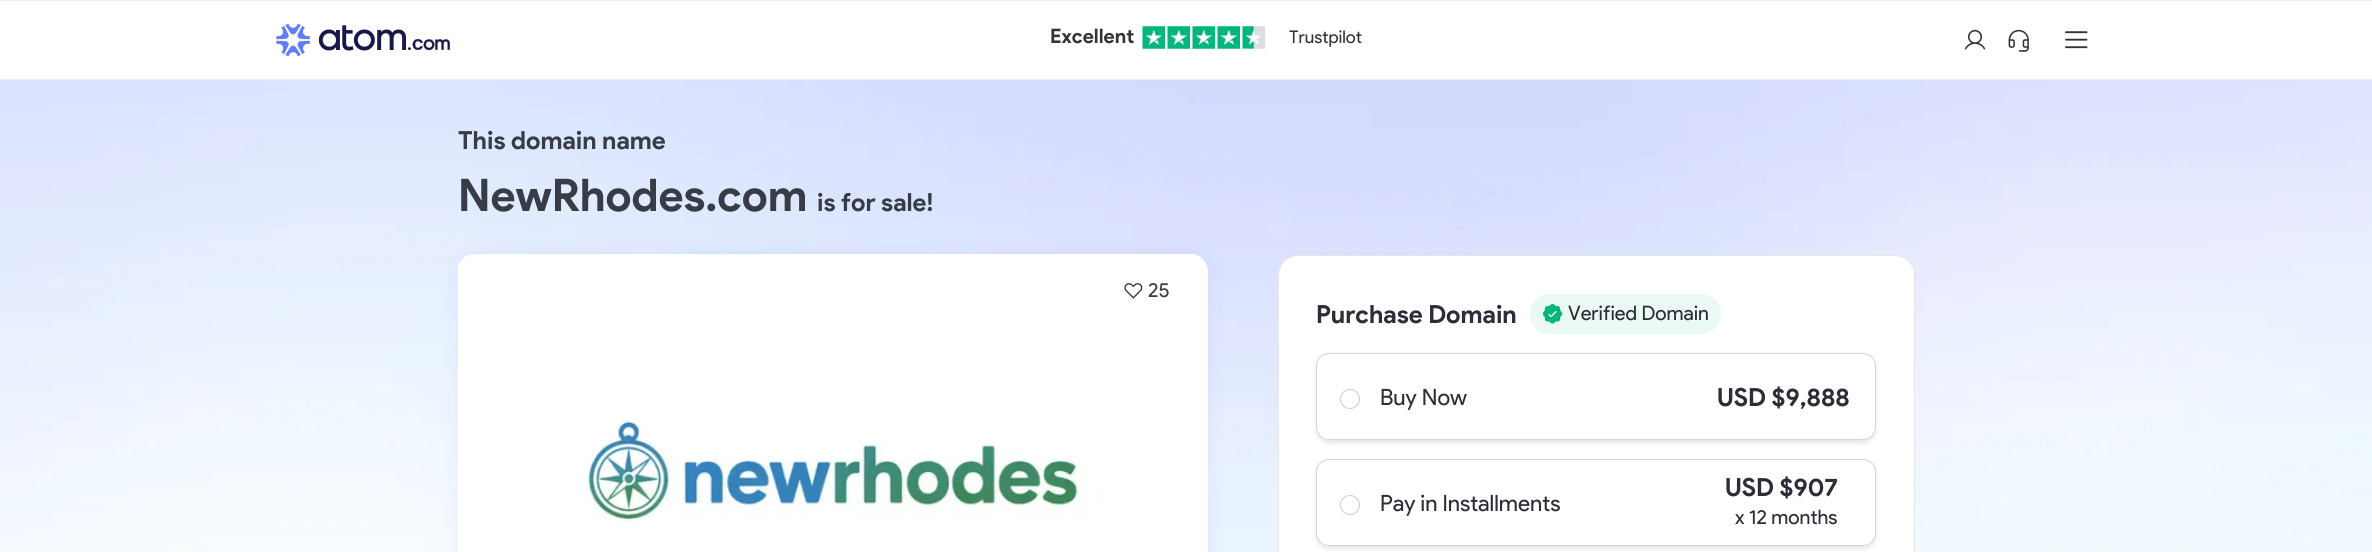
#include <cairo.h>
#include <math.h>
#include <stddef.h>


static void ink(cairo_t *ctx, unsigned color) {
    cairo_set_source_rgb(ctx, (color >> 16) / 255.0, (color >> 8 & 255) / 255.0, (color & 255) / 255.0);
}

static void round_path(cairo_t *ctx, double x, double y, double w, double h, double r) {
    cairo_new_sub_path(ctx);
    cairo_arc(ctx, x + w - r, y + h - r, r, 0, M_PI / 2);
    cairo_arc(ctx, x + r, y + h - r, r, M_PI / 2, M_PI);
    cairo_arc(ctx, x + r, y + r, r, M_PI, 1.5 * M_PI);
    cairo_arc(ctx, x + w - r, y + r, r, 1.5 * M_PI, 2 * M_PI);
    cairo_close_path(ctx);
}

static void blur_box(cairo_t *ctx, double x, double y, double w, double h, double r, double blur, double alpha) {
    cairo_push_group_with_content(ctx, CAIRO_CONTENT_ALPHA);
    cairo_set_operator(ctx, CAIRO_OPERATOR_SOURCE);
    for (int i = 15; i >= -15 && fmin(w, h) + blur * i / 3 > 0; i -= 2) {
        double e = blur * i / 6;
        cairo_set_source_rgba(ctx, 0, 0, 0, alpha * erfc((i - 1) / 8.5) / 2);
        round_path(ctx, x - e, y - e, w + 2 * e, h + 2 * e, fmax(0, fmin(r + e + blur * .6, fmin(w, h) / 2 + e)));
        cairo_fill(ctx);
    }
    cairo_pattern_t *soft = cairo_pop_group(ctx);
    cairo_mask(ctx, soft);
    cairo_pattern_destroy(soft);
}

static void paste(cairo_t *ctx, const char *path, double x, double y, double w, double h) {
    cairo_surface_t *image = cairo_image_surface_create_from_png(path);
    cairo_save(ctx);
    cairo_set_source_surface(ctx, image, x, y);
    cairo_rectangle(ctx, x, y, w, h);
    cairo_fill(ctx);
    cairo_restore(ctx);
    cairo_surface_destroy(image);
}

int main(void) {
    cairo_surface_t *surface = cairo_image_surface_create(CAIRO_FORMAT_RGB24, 2372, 552);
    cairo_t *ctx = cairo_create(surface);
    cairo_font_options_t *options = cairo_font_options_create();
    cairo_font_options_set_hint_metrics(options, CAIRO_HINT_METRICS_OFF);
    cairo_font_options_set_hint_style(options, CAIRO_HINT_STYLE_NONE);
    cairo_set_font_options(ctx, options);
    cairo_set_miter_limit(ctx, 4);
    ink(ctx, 0xFFFFFF);
    cairo_paint(ctx);
    ink(ctx, 0xEEEEEE);
    cairo_rectangle(ctx, 0, 0, 2372, 1);
    cairo_fill(ctx);
    cairo_rectangle(ctx, 0, 79, 2372, 1);
    cairo_fill(ctx);
    paste(ctx, "media/1.png", 276, 24, 174, 32);
    cairo_select_font_face(ctx, "Product Sans", CAIRO_FONT_SLANT_NORMAL, CAIRO_FONT_WEIGHT_BOLD);
    cairo_set_font_size(ctx, 20);
    ink(ctx, 0x343434);
    cairo_move_to(ctx, 1050, 43);
    cairo_show_text(ctx, "Excellent");
    paste(ctx, "media/2.png", 1142, 26, 23, 23);
    paste(ctx, "media/2.png", 1167, 26, 23, 23);
    paste(ctx, "media/2.png", 1192, 26, 23, 23);
    paste(ctx, "media/2.png", 1217, 26, 23, 23);
    paste(ctx, "media/3.png", 1242, 26, 23, 23);
    cairo_select_font_face(ctx, "Product Sans", CAIRO_FONT_SLANT_NORMAL, CAIRO_FONT_WEIGHT_NORMAL);
    cairo_set_font_size(ctx, 17.5);
    cairo_move_to(ctx, 1289, 43);
    cairo_show_text(ctx, "Trustpilot");
    paste(ctx, "media/4.png", 1964, 29, 22, 21);
    paste(ctx, "media/5.png", 2008, 29, 21, 23);
    paste(ctx, "media/6.png", 2065, 31, 23, 18);
    paste(ctx, "media/7.png", 0, 80, 2372, 472);
    cairo_select_font_face(ctx, "Product Sans", CAIRO_FONT_SLANT_NORMAL, CAIRO_FONT_WEIGHT_BOLD);
    cairo_set_font_size(ctx, 25);
    ink(ctx, 0x383C46);
    cairo_move_to(ctx, 458, 149);
    cairo_show_text(ctx, "This domain name");
    cairo_set_font_size(ctx, 45);
    cairo_move_to(ctx, 458, 211);
    cairo_show_text(ctx, "NewRhodes.com");
    cairo_set_font_size(ctx, 25);
    cairo_move_to(ctx, 817, 211);
    cairo_show_text(ctx, "is for sale!");
    ink(ctx, 0x637CF7);
    blur_box(ctx, 458, 254, 750, 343, 18, 9, 0.13);
    ink(ctx, 0xFFFFFF);
    round_path(ctx, 458, 254, 750, 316, 18);
    cairo_fill(ctx);
    paste(ctx, "media/8.png", 457, 254, 750, 269);
    paste(ctx, "media/9.png", 1124, 283, 19, 16);
    cairo_select_font_face(ctx, "Product Sans", CAIRO_FONT_SLANT_NORMAL, CAIRO_FONT_WEIGHT_NORMAL);
    cairo_set_font_size(ctx, 20);
    ink(ctx, 0x383C46);
    cairo_move_to(ctx, 1148, 297);
    cairo_show_text(ctx, "25");
    ink(ctx, 0xFFFFFF);
    round_path(ctx, 1278.5, 255.5, 636, 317, 19.5);
    cairo_fill_preserve(ctx);
    ink(ctx, 0xE6E6E6);
    cairo_set_line_width(ctx, 1);
    cairo_stroke(ctx);
    cairo_select_font_face(ctx, "Product Sans", CAIRO_FONT_SLANT_NORMAL, CAIRO_FONT_WEIGHT_BOLD);
    cairo_set_font_size(ctx, 25);
    ink(ctx, 0x2B2E36);
    cairo_move_to(ctx, 1316, 323);
    cairo_show_text(ctx, "Purchase Domain");
    ink(ctx, 0xEBF9F4);
    round_path(ctx, 1530, 294, 191, 40, 20);
    cairo_fill(ctx);
    paste(ctx, "media/10.png", 1543, 304, 20, 20);
    cairo_select_font_face(ctx, "Product Sans", CAIRO_FONT_SLANT_NORMAL, CAIRO_FONT_WEIGHT_NORMAL);
    cairo_set_font_size(ctx, 20);
    ink(ctx, 0x2B2E36);
    cairo_move_to(ctx, 1568, 320);
    cairo_show_text(ctx, "Verified Domain");
    cairo_save(ctx);
    cairo_set_fill_rule(ctx, CAIRO_FILL_RULE_EVEN_ODD);
    cairo_new_path(ctx);
    cairo_move_to(ctx, 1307, 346);
    cairo_line_to(ctx, 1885, 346);
    cairo_line_to(ctx, 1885, 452);
    cairo_line_to(ctx, 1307, 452);
    cairo_close_path(ctx);
    cairo_move_to(ctx, 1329, 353);
    cairo_line_to(ctx, 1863, 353);
    cairo_curve_to(ctx, 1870, 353, 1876, 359, 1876, 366);
    cairo_line_to(ctx, 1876, 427);
    cairo_curve_to(ctx, 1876, 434, 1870, 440, 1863, 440);
    cairo_line_to(ctx, 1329, 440);
    cairo_curve_to(ctx, 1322, 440, 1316, 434, 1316, 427);
    cairo_line_to(ctx, 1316, 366);
    cairo_curve_to(ctx, 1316, 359, 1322, 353, 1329, 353);
    cairo_close_path(ctx);
    cairo_clip(ctx);
    ink(ctx, 0x000000);
    blur_box(ctx, 1316, 355, 560, 88, 13, 2.5, 0.1);
    cairo_restore(ctx);
    round_path(ctx, 1316.5, 353.5, 559, 86, 12.5);
    ink(ctx, 0xD0D5DD);
    cairo_stroke(ctx);
    cairo_arc(ctx, 1350, 399, 9.5, 0, 2 * M_PI);
    ink(ctx, 0xCCCCCC);
    cairo_stroke(ctx);
    cairo_set_font_size(ctx, 22.5);
    ink(ctx, 0x2B2E36);
    cairo_move_to(ctx, 1380, 405);
    cairo_show_text(ctx, "Buy Now");
    cairo_select_font_face(ctx, "Product Sans", CAIRO_FONT_SLANT_NORMAL, CAIRO_FONT_WEIGHT_BOLD);
    cairo_set_font_size(ctx, 25);
    cairo_move_to(ctx, 1717, 406);
    cairo_show_text(ctx, "USD $9,888");
    cairo_save(ctx);
    cairo_set_fill_rule(ctx, CAIRO_FILL_RULE_EVEN_ODD);
    cairo_new_path(ctx);
    cairo_move_to(ctx, 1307, 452);
    cairo_line_to(ctx, 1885, 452);
    cairo_line_to(ctx, 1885, 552);
    cairo_line_to(ctx, 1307, 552);
    cairo_close_path(ctx);
    cairo_move_to(ctx, 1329, 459);
    cairo_line_to(ctx, 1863, 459);
    cairo_curve_to(ctx, 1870, 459, 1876, 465, 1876, 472);
    cairo_line_to(ctx, 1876, 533);
    cairo_curve_to(ctx, 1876, 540, 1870, 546, 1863, 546);
    cairo_line_to(ctx, 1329, 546);
    cairo_curve_to(ctx, 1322, 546, 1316, 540, 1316, 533);
    cairo_line_to(ctx, 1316, 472);
    cairo_curve_to(ctx, 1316, 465, 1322, 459, 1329, 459);
    cairo_close_path(ctx);
    cairo_clip(ctx);
    ink(ctx, 0x000000);
    blur_box(ctx, 1316, 461, 560, 88, 13, 2.5, 0.1);
    cairo_restore(ctx);
    round_path(ctx, 1316.5, 459.5, 559, 86, 12.5);
    ink(ctx, 0xD0D5DD);
    cairo_stroke(ctx);
    cairo_arc(ctx, 1350, 505, 9.5, 0, 2 * M_PI);
    ink(ctx, 0xCCCCCC);
    cairo_stroke(ctx);
    cairo_select_font_face(ctx, "Product Sans", CAIRO_FONT_SLANT_NORMAL, CAIRO_FONT_WEIGHT_NORMAL);
    cairo_set_font_size(ctx, 22.5);
    ink(ctx, 0x2B2E36);
    cairo_move_to(ctx, 1380, 511);
    cairo_show_text(ctx, "Pay in Installments");
    cairo_select_font_face(ctx, "Product Sans", CAIRO_FONT_SLANT_NORMAL, CAIRO_FONT_WEIGHT_BOLD);
    cairo_set_font_size(ctx, 25);
    cairo_move_to(ctx, 1725, 496);
    cairo_show_text(ctx, "USD $907");
    cairo_select_font_face(ctx, "Product Sans", CAIRO_FONT_SLANT_NORMAL, CAIRO_FONT_WEIGHT_NORMAL);
    cairo_set_font_size(ctx, 20);
    cairo_move_to(ctx, 1735, 524);
    cairo_show_text(ctx, "x 12 months");
    cairo_surface_write_to_png(surface, "image.png");
    cairo_font_options_destroy(options);
    cairo_destroy(ctx);
    cairo_surface_destroy(surface);
    return 0;
}
